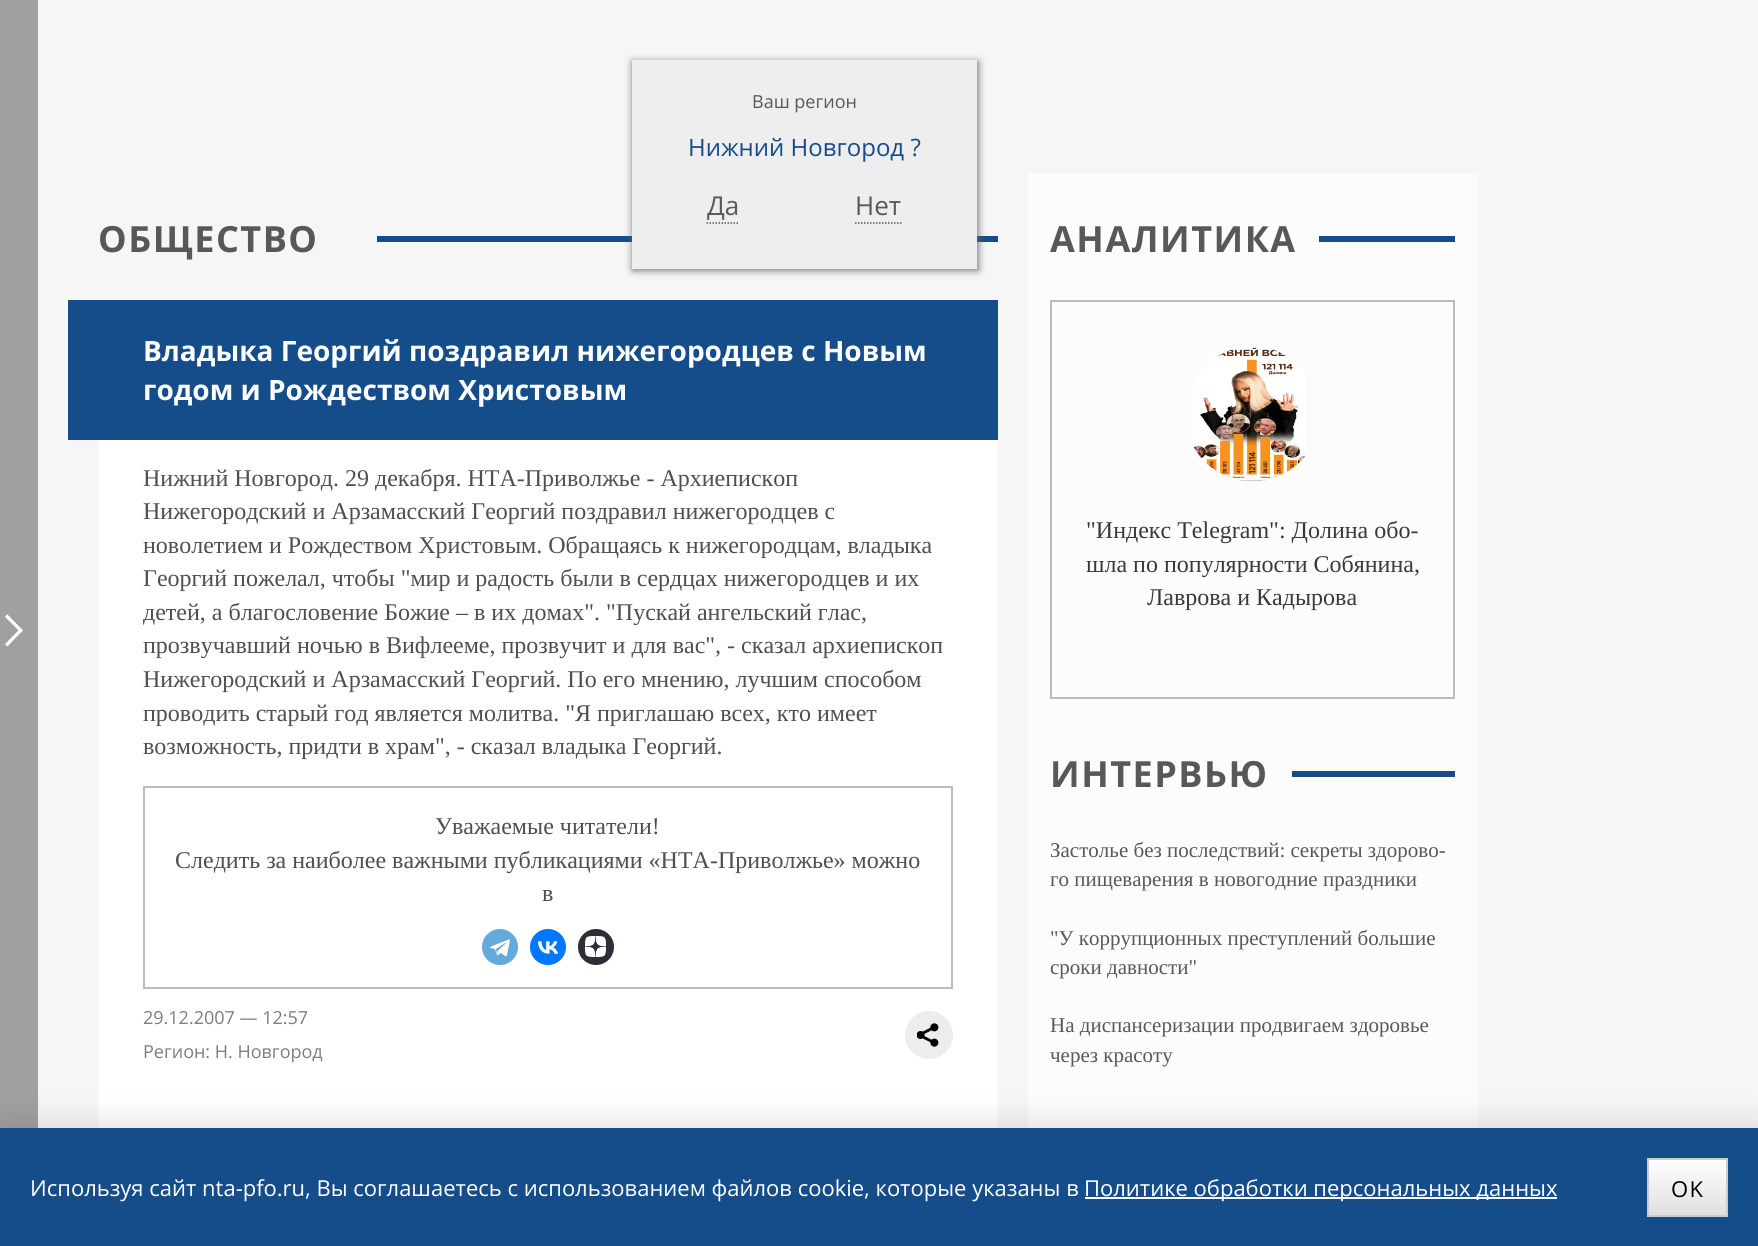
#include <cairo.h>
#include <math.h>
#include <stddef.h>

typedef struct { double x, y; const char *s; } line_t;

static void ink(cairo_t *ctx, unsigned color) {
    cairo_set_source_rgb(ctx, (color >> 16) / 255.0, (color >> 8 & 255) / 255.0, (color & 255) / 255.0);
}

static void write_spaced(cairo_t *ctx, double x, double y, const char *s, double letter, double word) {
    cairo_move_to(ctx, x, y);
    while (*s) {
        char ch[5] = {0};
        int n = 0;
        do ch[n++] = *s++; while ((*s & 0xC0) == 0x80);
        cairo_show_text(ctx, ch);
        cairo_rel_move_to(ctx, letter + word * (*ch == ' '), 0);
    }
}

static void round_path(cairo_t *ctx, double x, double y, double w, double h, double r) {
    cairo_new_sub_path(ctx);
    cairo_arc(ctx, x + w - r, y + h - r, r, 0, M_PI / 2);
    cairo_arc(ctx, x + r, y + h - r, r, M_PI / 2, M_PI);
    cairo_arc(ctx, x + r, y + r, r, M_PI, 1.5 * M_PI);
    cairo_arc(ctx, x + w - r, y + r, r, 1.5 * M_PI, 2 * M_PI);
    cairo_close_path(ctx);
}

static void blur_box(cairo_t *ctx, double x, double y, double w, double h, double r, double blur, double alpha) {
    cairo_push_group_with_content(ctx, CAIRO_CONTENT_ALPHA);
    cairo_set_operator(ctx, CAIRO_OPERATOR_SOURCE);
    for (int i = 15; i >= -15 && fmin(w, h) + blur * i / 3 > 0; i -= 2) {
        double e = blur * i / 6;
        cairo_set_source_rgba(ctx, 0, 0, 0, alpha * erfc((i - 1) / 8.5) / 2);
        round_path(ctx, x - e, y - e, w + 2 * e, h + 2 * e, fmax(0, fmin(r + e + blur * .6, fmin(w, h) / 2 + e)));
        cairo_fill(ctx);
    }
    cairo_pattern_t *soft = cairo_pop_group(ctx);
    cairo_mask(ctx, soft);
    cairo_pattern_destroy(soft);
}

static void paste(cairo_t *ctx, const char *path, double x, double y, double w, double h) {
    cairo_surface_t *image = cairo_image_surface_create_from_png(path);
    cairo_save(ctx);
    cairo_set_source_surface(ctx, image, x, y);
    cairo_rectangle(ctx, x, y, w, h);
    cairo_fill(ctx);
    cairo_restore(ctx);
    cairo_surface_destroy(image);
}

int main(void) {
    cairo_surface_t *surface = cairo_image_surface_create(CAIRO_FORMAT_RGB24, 1758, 1246);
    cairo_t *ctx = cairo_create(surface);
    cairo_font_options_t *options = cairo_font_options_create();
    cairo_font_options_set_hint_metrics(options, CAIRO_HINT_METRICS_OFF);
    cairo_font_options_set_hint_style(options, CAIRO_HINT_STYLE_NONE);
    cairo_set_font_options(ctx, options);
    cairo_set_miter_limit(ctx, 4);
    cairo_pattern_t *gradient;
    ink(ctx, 0xF6F6F6);
    cairo_paint(ctx);
    ink(ctx, 0x154C8A);
    cairo_rectangle(ctx, 377, 236, 621, 6);
    cairo_fill(ctx);
    ink(ctx, 0x666666);
    blur_box(ctx, 633, 62, 345, 208, 0, 4, 1);
    ink(ctx, 0xEEEEEE);
    cairo_rectangle(ctx, 632, 60, 345, 209);
    cairo_fill(ctx);
    cairo_select_font_face(ctx, "Open Sans", CAIRO_FONT_SLANT_NORMAL, CAIRO_FONT_WEIGHT_NORMAL);
    cairo_set_font_size(ctx, 18);
    ink(ctx, 0x585858);
    cairo_move_to(ctx, 752, 108);
    cairo_show_text(ctx, "Ваш регион");
    cairo_set_font_size(ctx, 24);
    ink(ctx, 0x154C8A);
    cairo_move_to(ctx, 688, 156);
    cairo_show_text(ctx, "Нижний Новгород ?");
    cairo_new_path(ctx);
    cairo_move_to(ctx, 706.5, 223);
    cairo_line_to(ctx, 738, 223);
    ink(ctx, 0x585858);
    cairo_set_line_width(ctx, 1.5);
    cairo_set_dash(ctx, (double[]){1.5, 1.5}, 2, 0);
    cairo_stroke(ctx);
    cairo_set_font_size(ctx, 26);
    cairo_move_to(ctx, 707, 215);
    cairo_show_text(ctx, "Да");
    cairo_new_path(ctx);
    cairo_move_to(ctx, 855, 223);
    cairo_line_to(ctx, 901.5, 223);
    cairo_stroke(ctx);
    cairo_move_to(ctx, 855, 215);
    cairo_show_text(ctx, "Нет");
    ink(ctx, 0xA0A0A0);
    cairo_rectangle(ctx, 0, 0, 38, 1128);
    cairo_fill(ctx);
    cairo_select_font_face(ctx, "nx", CAIRO_FONT_SLANT_NORMAL, CAIRO_FONT_WEIGHT_NORMAL);
    cairo_set_font_size(ctx, 32);
    ink(ctx, 0xFFFFFF);
    cairo_move_to(ctx, 5, 641);
    cairo_show_text(ctx, ">");
    cairo_select_font_face(ctx, "Open Sans", CAIRO_FONT_SLANT_NORMAL, CAIRO_FONT_WEIGHT_BOLD);
    cairo_set_font_size(ctx, 36);
    ink(ctx, 0x585858);
    write_spaced(ctx, 98, 252, "ОБЩЕСТВО", 1.5, 0);
    ink(ctx, 0x154C8A);
    cairo_rectangle(ctx, 68, 300, 930, 140);
    cairo_fill(ctx);
    cairo_set_font_size(ctx, 28);
    ink(ctx, 0xFFFFFF);
    cairo_move_to(ctx, 143, 361);
    cairo_show_text(ctx, "Владыка Георгий поздравил нижегородцев с Новым");
    cairo_move_to(ctx, 143, 400);
    cairo_show_text(ctx, "годом и Рождеством Христовым");
    cairo_rectangle(ctx, 98, 440, 900, 688);
    cairo_fill(ctx);
    cairo_select_font_face(ctx, "Tinos", CAIRO_FONT_SLANT_NORMAL, CAIRO_FONT_WEIGHT_NORMAL);
    cairo_set_font_size(ctx, 24);
    ink(ctx, 0x504F4F);
    {
        static const line_t items[] = {
            {143, 486, "Нижний Новгород. 29 декабря. НТА-Приволжье - Архиепископ"},
            {143, 519, "Нижегородский и Арзамасский Георгий поздравил нижегородцев с"},
            {143, 553, "новолетием и Рождеством Христовым. Обращаясь к нижегородцам, владыка"},
            {143, 586, "Георгий пожелал, чтобы \"мир и радость были в сердцах нижегородцев и их"},
            {143, 620, "детей, а благословение Божие – в их домах\". \"Пускай ангельский глас,"},
            {143, 653, "прозвучавший ночью в Вифлееме, прозвучит и для вас\", - сказал архиепископ"},
            {143, 687, "Нижегородский и Арзамасский Георгий. По его мнению, лучшим способом"},
            {143, 721, "проводить старый год является молитва. \"Я приглашаю всех, кто имеет"},
            {143, 754, "возможность, придти в храм\", - сказал владыка Георгий."},
        };
        for (size_t i = 0; i < sizeof items / sizeof *items; i++) {
            cairo_move_to(ctx, items[i].x, items[i].y);
            cairo_show_text(ctx, items[i].s);
        }
    }
    cairo_rectangle(ctx, 144, 787, 808, 201);
    ink(ctx, 0xBABCBF);
    cairo_set_line_width(ctx, 2);
    cairo_set_dash(ctx, NULL, 0, 0);
    cairo_stroke(ctx);
    ink(ctx, 0x504F4F);
    {
        static const line_t items[] = {
            {435, 834, "Уважаемые читатели!"},
            {175, 868, "Следить за наиболее важными публикациями «НТА-Приволжье» можно"},
            {542, 901, "в"},
        };
        for (size_t i = 0; i < sizeof items / sizeof *items; i++) {
            cairo_move_to(ctx, items[i].x, items[i].y);
            cairo_show_text(ctx, items[i].s);
        }
    }
    ink(ctx, 0x64A9DC);
    cairo_new_path(ctx);
    cairo_arc(ctx, 500, 947, 18, 0, 2 * M_PI);
    cairo_fill(ctx);
    paste(ctx, "media/1.png", 490, 939, 20, 18);
    ink(ctx, 0x0077FF);
    cairo_arc(ctx, 548, 947, 18, 0, 2 * M_PI);
    cairo_fill(ctx);
    paste(ctx, "media/2.png", 538, 941, 20, 13);
    ink(ctx, 0x2C3036);
    cairo_arc(ctx, 596, 947, 18, 0, 2 * M_PI);
    cairo_fill(ctx);
    paste(ctx, "media/3.png", 585, 936, 21, 21);
    cairo_select_font_face(ctx, "Open Sans", CAIRO_FONT_SLANT_NORMAL, CAIRO_FONT_WEIGHT_NORMAL);
    cairo_set_font_size(ctx, 18);
    ink(ctx, 0x7D7D7D);
    cairo_move_to(ctx, 143, 1024);
    cairo_show_text(ctx, "29.12.2007 — 12:57");
    ink(ctx, 0xEDEDED);
    cairo_new_path(ctx);
    cairo_arc(ctx, 929, 1035, 24, 0, 2 * M_PI);
    cairo_fill(ctx);
    paste(ctx, "media/4.png", 917, 1023, 22, 24);
    ink(ctx, 0x7D7D7D);
    cairo_move_to(ctx, 143, 1058);
    cairo_show_text(ctx, "Регион: Н. Новгород");
    ink(ctx, 0xFCFCFC);
    cairo_rectangle(ctx, 1028, 173, 450, 955);
    cairo_fill(ctx);
    cairo_select_font_face(ctx, "Open Sans", CAIRO_FONT_SLANT_NORMAL, CAIRO_FONT_WEIGHT_BOLD);
    cairo_set_font_size(ctx, 36);
    ink(ctx, 0x585858);
    write_spaced(ctx, 1050, 252, "АНАЛИТИКА", 1.5, 0);
    ink(ctx, 0x154C8A);
    cairo_rectangle(ctx, 1319, 236, 136, 6);
    cairo_fill(ctx);
    cairo_rectangle(ctx, 1051, 301, 403, 397);
    ink(ctx, 0xBABCBF);
    cairo_stroke(ctx);
    paste(ctx, "media/5.png", 1193, 347, 113, 134);
    cairo_select_font_face(ctx, "Tinos", CAIRO_FONT_SLANT_NORMAL, CAIRO_FONT_WEIGHT_NORMAL);
    cairo_set_font_size(ctx, 24);
    ink(ctx, 0x393939);
    {
        static const line_t items[] = {
            {1086, 538, "\"Индекс Telegram\": Долина обо-"},
            {1086, 572, "шла по популярности Собянина,"},
            {1147, 605, "Лаврова и Кадырова"},
        };
        for (size_t i = 0; i < sizeof items / sizeof *items; i++) {
            cairo_move_to(ctx, items[i].x, items[i].y);
            cairo_show_text(ctx, items[i].s);
        }
    }
    cairo_select_font_face(ctx, "Open Sans", CAIRO_FONT_SLANT_NORMAL, CAIRO_FONT_WEIGHT_BOLD);
    cairo_set_font_size(ctx, 36);
    ink(ctx, 0x585858);
    write_spaced(ctx, 1050, 787, "ИНТЕРВЬЮ", 1.5, 0);
    ink(ctx, 0x154C8A);
    cairo_rectangle(ctx, 1292, 771, 163, 6);
    cairo_fill(ctx);
    cairo_select_font_face(ctx, "Tinos", CAIRO_FONT_SLANT_NORMAL, CAIRO_FONT_WEIGHT_NORMAL);
    cairo_set_font_size(ctx, 21);
    ink(ctx, 0x585858);
    {
        static const line_t items[] = {
            {1050, 857, "Застолье без последствий: секреты здорово-"},
            {1050, 886, "го пищеварения в новогодние праздники"},
            {1050, 945, "\"У коррупционных преступлений большие"},
            {1050, 974, "сроки давности\""},
            {1050, 1032, "На диспансеризации продвигаем здоровье"},
            {1050, 1062, "через красоту"},
        };
        for (size_t i = 0; i < sizeof items / sizeof *items; i++) {
            cairo_move_to(ctx, items[i].x, items[i].y);
            cairo_show_text(ctx, items[i].s);
        }
    }
    ink(ctx, 0x000000);
    blur_box(ctx, 0, 1128, 1758, 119, 0, 19, 0.15);
    ink(ctx, 0x154C8A);
    cairo_rectangle(ctx, 0, 1128, 1758, 118);
    cairo_fill(ctx);
    cairo_select_font_face(ctx, "Open Sans", CAIRO_FONT_SLANT_NORMAL, CAIRO_FONT_WEIGHT_NORMAL);
    cairo_set_font_size(ctx, 22);
    ink(ctx, 0xFFFFFF);
    cairo_move_to(ctx, 30, 1196);
    cairo_show_text(ctx, "Используя сайт nta-pfo.ru, Вы соглашаетесь с использованием файлов cookie, которые указаны в");
    cairo_rectangle(ctx, 1085, 1197, 472, 2);
    cairo_fill(ctx);
    cairo_move_to(ctx, 1084, 1196);
    cairo_show_text(ctx, "Политике обработки персональных данных");
    gradient = cairo_pattern_create_linear(1688, 1160, 1688, 1215);
    cairo_pattern_add_color_stop_rgba(gradient, 0, 1, 1, 1, 1);
    cairo_pattern_add_color_stop_rgba(gradient, 1, 0.878, 0.878, 0.878, 1);
    cairo_set_source(ctx, gradient);
    cairo_pattern_destroy(gradient);
    cairo_rectangle(ctx, 1649, 1160, 77, 55);
    cairo_fill(ctx);
    cairo_rectangle(ctx, 1648, 1159, 79, 57);
    ink(ctx, 0xCCCCCC);
    cairo_stroke(ctx);
    ink(ctx, 0x000000);
    write_spaced(ctx, 1671, 1197, "OK", 1.5, 0);
    cairo_surface_write_to_png(surface, "image.png");
    cairo_font_options_destroy(options);
    cairo_destroy(ctx);
    cairo_surface_destroy(surface);
    return 0;
}
